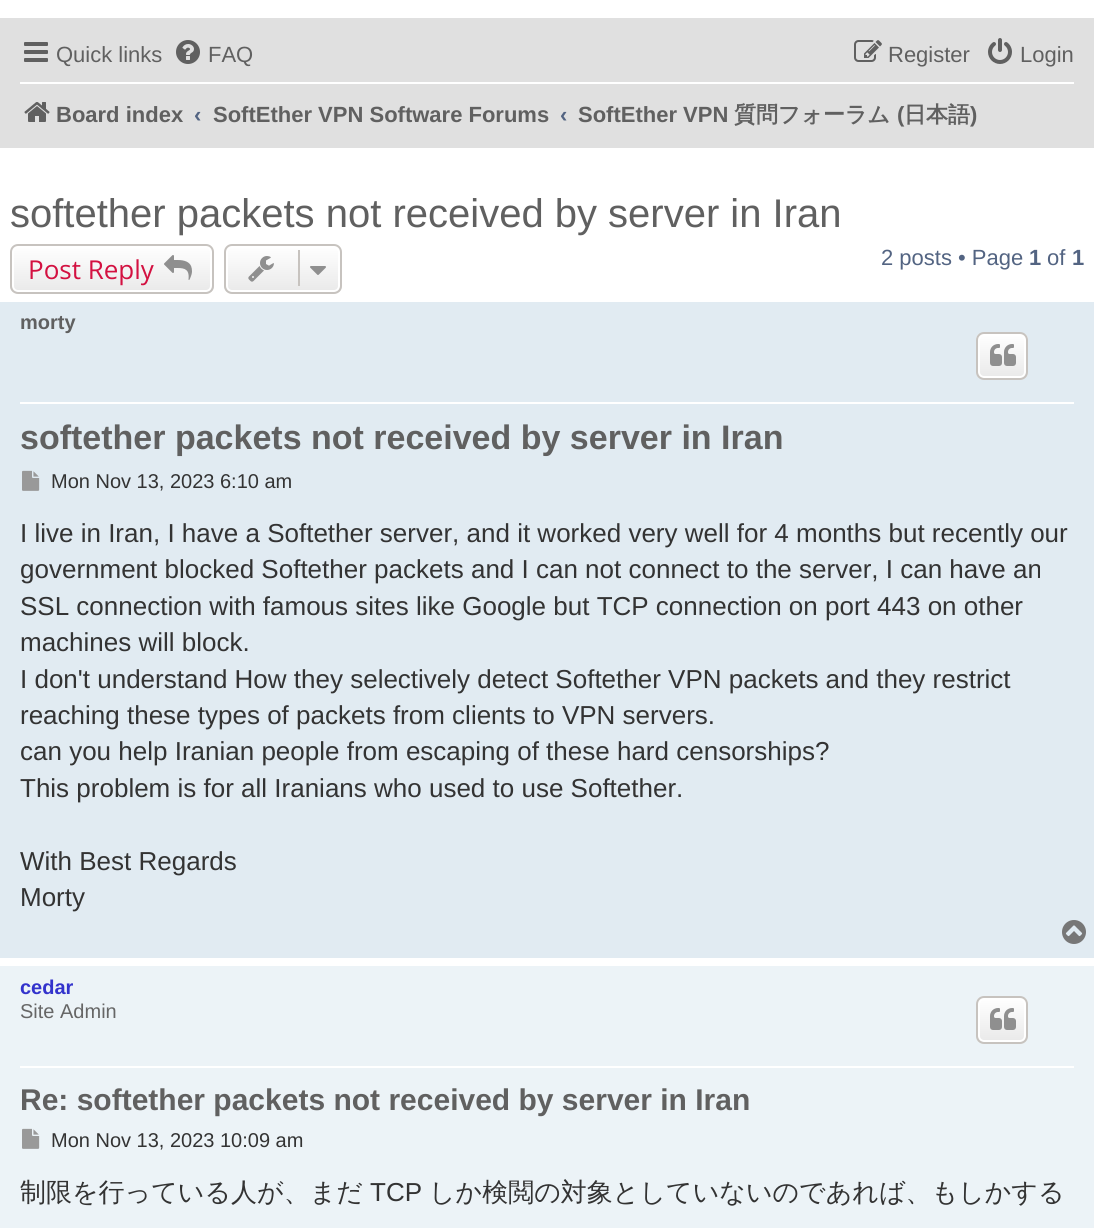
#include <cairo.h>
#include <math.h>
#include <stddef.h>

typedef struct { double x, y; const char *s; } line_t;

static void ink(cairo_t *ctx, unsigned color) {
    cairo_set_source_rgb(ctx, (color >> 16) / 255.0, (color >> 8 & 255) / 255.0, (color & 255) / 255.0);
}

static void round_path(cairo_t *ctx, double x, double y, double w, double h, double r) {
    cairo_new_sub_path(ctx);
    cairo_arc(ctx, x + w - r, y + h - r, r, 0, M_PI / 2);
    cairo_arc(ctx, x + r, y + h - r, r, M_PI / 2, M_PI);
    cairo_arc(ctx, x + r, y + r, r, M_PI, 1.5 * M_PI);
    cairo_arc(ctx, x + w - r, y + r, r, 1.5 * M_PI, 2 * M_PI);
    cairo_close_path(ctx);
}

static void paste(cairo_t *ctx, const char *path, double x, double y, double w, double h) {
    cairo_surface_t *image = cairo_image_surface_create_from_png(path);
    cairo_save(ctx);
    cairo_set_source_surface(ctx, image, x, y);
    cairo_rectangle(ctx, x, y, w, h);
    cairo_fill(ctx);
    cairo_restore(ctx);
    cairo_surface_destroy(image);
}

int main(void) {
    cairo_surface_t *surface = cairo_image_surface_create(CAIRO_FORMAT_RGB24, 1094, 1228);
    cairo_t *ctx = cairo_create(surface);
    cairo_font_options_t *options = cairo_font_options_create();
    cairo_font_options_set_hint_metrics(options, CAIRO_HINT_METRICS_OFF);
    cairo_font_options_set_hint_style(options, CAIRO_HINT_STYLE_NONE);
    cairo_set_font_options(ctx, options);
    cairo_set_miter_limit(ctx, 4);
    cairo_pattern_t *gradient;
    ink(ctx, 0xFFFFFF);
    cairo_paint(ctx);
    ink(ctx, 0xE0E0E0);
    cairo_rectangle(ctx, 0, 18, 1094, 130);
    cairo_fill(ctx);
    paste(ctx, "media/1.png", 24, 42, 24, 20);
    cairo_select_font_face(ctx, "Liberation Sans", CAIRO_FONT_SLANT_NORMAL, CAIRO_FONT_WEIGHT_NORMAL);
    cairo_set_font_size(ctx, 22);
    ink(ctx, 0x606060);
    cairo_move_to(ctx, 56, 62);
    cairo_show_text(ctx, "Quick links");
    paste(ctx, "media/2.png", 176, 40, 24, 24);
    cairo_move_to(ctx, 208, 62);
    cairo_show_text(ctx, "FAQ");
    paste(ctx, "media/3.png", 854, 40, 28, 22);
    cairo_move_to(ctx, 888, 62);
    cairo_show_text(ctx, "Register");
    paste(ctx, "media/4.png", 988, 38, 24, 26);
    cairo_move_to(ctx, 1020, 62);
    cairo_show_text(ctx, "Login");
    ink(ctx, 0xFFFFFF);
    cairo_rectangle(ctx, 20, 82, 1054, 2);
    cairo_fill(ctx);
    paste(ctx, "media/5.png", 24, 102, 26, 20);
    cairo_select_font_face(ctx, "Liberation Sans", CAIRO_FONT_SLANT_NORMAL, CAIRO_FONT_WEIGHT_BOLD);
    ink(ctx, 0x606060);
    cairo_move_to(ctx, 56, 122);
    cairo_show_text(ctx, "Board index");
    ink(ctx, 0x536482);
    cairo_move_to(ctx, 194, 122);
    cairo_show_text(ctx, "‹");
    ink(ctx, 0x606060);
    cairo_move_to(ctx, 213, 122);
    cairo_show_text(ctx, "SoftEther VPN Software Forums");
    ink(ctx, 0x536482);
    cairo_move_to(ctx, 560, 122);
    cairo_show_text(ctx, "‹");
    ink(ctx, 0x606060);
    cairo_move_to(ctx, 578, 122);
    cairo_show_text(ctx, "SoftEther VPN");
    cairo_select_font_face(ctx, "WenQuanYi Zen Hei", CAIRO_FONT_SLANT_NORMAL, CAIRO_FONT_WEIGHT_BOLD);
    cairo_move_to(ctx, 734, 122);
    cairo_show_text(ctx, "質問フォーラム");
    cairo_select_font_face(ctx, "Liberation Sans", CAIRO_FONT_SLANT_NORMAL, CAIRO_FONT_WEIGHT_BOLD);
    cairo_move_to(ctx, 897, 122);
    cairo_show_text(ctx, "(");
    cairo_select_font_face(ctx, "WenQuanYi Zen Hei", CAIRO_FONT_SLANT_NORMAL, CAIRO_FONT_WEIGHT_BOLD);
    cairo_move_to(ctx, 904, 122);
    cairo_show_text(ctx, "日本語");
    cairo_select_font_face(ctx, "Liberation Sans", CAIRO_FONT_SLANT_NORMAL, CAIRO_FONT_WEIGHT_BOLD);
    cairo_move_to(ctx, 970, 122);
    cairo_show_text(ctx, ")");
    cairo_select_font_face(ctx, "Liberation Sans", CAIRO_FONT_SLANT_NORMAL, CAIRO_FONT_WEIGHT_NORMAL);
    cairo_set_font_size(ctx, 40);
    cairo_move_to(ctx, 10, 227);
    cairo_show_text(ctx, "softether packets not received by server in Iran");
    cairo_save(ctx);
    round_path(ctx, 10, 244, 204, 50, 8);
    cairo_clip(ctx);
    gradient = cairo_pattern_create_linear(112, 246, 112, 292);
    cairo_pattern_add_color_stop_rgba(gradient, 0, 1, 1, 1, 1);
    cairo_pattern_add_color_stop_rgba(gradient, 1, 0.914, 0.914, 0.914, 1);
    cairo_set_source(ctx, gradient);
    cairo_pattern_destroy(gradient);
    cairo_rectangle(ctx, 10, 246, 204, 46);
    cairo_fill(ctx);
    cairo_restore(ctx);
    round_path(ctx, 13, 247, 198, 44, 5);
    ink(ctx, 0xFFFFFF);
    cairo_stroke(ctx);
    round_path(ctx, 11, 245, 202, 48, 7);
    ink(ctx, 0xC7C3BF);
    cairo_stroke(ctx);
    cairo_select_font_face(ctx, "Open Sans", CAIRO_FONT_SLANT_NORMAL, CAIRO_FONT_WEIGHT_NORMAL);
    cairo_set_font_size(ctx, 26);
    ink(ctx, 0xD31141);
    cairo_move_to(ctx, 28, 279);
    cairo_show_text(ctx, "Post Reply");
    paste(ctx, "media/6.png", 164, 255, 28, 25);
    cairo_save(ctx);
    round_path(ctx, 224, 244, 118, 50, 8);
    cairo_clip(ctx);
    gradient = cairo_pattern_create_linear(283, 246, 283, 292);
    cairo_pattern_add_color_stop_rgba(gradient, 0, 1, 1, 1, 1);
    cairo_pattern_add_color_stop_rgba(gradient, 1, 0.914, 0.914, 0.914, 1);
    cairo_set_source(ctx, gradient);
    cairo_pattern_destroy(gradient);
    cairo_rectangle(ctx, 224, 246, 118, 46);
    cairo_fill(ctx);
    cairo_restore(ctx);
    round_path(ctx, 227, 247, 112, 44, 5);
    ink(ctx, 0xFFFFFF);
    cairo_stroke(ctx);
    round_path(ctx, 225, 245, 116, 48, 7);
    ink(ctx, 0xC7C3BF);
    cairo_stroke(ctx);
    paste(ctx, "media/7.png", 248, 256, 26, 26);
    cairo_rectangle(ctx, 298, 250, 2, 36);
    cairo_fill(ctx);
    paste(ctx, "media/8.png", 310, 266, 16, 9);
    cairo_select_font_face(ctx, "Liberation Sans", CAIRO_FONT_SLANT_NORMAL, CAIRO_FONT_WEIGHT_NORMAL);
    cairo_set_font_size(ctx, 22);
    ink(ctx, 0x536482);
    cairo_move_to(ctx, 881, 265);
    cairo_show_text(ctx, "2 posts • Page");
    cairo_select_font_face(ctx, "Liberation Sans", CAIRO_FONT_SLANT_NORMAL, CAIRO_FONT_WEIGHT_BOLD);
    cairo_move_to(ctx, 1029, 265);
    cairo_show_text(ctx, "1");
    cairo_select_font_face(ctx, "Liberation Sans", CAIRO_FONT_SLANT_NORMAL, CAIRO_FONT_WEIGHT_NORMAL);
    cairo_move_to(ctx, 1047, 265);
    cairo_show_text(ctx, "of");
    cairo_select_font_face(ctx, "Liberation Sans", CAIRO_FONT_SLANT_NORMAL, CAIRO_FONT_WEIGHT_BOLD);
    cairo_move_to(ctx, 1072, 265);
    cairo_show_text(ctx, "1");
    ink(ctx, 0xE1EBF2);
    cairo_rectangle(ctx, 0, 302, 1094, 656);
    cairo_fill(ctx);
    ink(ctx, 0xFFFFFF);
    cairo_rectangle(ctx, 20, 402, 1054, 2);
    cairo_fill(ctx);
    cairo_set_font_size(ctx, 20);
    ink(ctx, 0x606060);
    cairo_move_to(ctx, 20, 329);
    cairo_show_text(ctx, "morty");
    cairo_save(ctx);
    round_path(ctx, 976, 332, 52, 48, 8);
    cairo_clip(ctx);
    gradient = cairo_pattern_create_linear(1002, 334, 1002, 378);
    cairo_pattern_add_color_stop_rgba(gradient, 0, 1, 1, 1, 1);
    cairo_pattern_add_color_stop_rgba(gradient, 1, 0.914, 0.914, 0.914, 1);
    cairo_set_source(ctx, gradient);
    cairo_pattern_destroy(gradient);
    cairo_rectangle(ctx, 976, 334, 52, 44);
    cairo_fill(ctx);
    cairo_restore(ctx);
    round_path(ctx, 979, 335, 46, 42, 5);
    ink(ctx, 0xFFFFFF);
    cairo_stroke(ctx);
    round_path(ctx, 977, 333, 50, 46, 7);
    ink(ctx, 0xC7C3BF);
    cairo_stroke(ctx);
    paste(ctx, "media/9.png", 990, 344, 26, 22);
    cairo_set_font_size(ctx, 34);
    ink(ctx, 0x606060);
    cairo_move_to(ctx, 20, 449);
    cairo_show_text(ctx, "softether packets not received by server in Iran");
    paste(ctx, "media/10.png", 22, 470, 18, 21);
    cairo_select_font_face(ctx, "Liberation Sans", CAIRO_FONT_SLANT_NORMAL, CAIRO_FONT_WEIGHT_NORMAL);
    cairo_set_font_size(ctx, 20);
    ink(ctx, 0x333333);
    cairo_move_to(ctx, 51, 488);
    cairo_show_text(ctx, "Mon Nov 13, 2023 6:10 am");
    cairo_set_font_size(ctx, 26);
    {
        static const line_t items[] = {
            {20, 542, "I live in Iran, I have a Softether server, and it worked very well for 4 months but recently our"},
            {20, 578, "government blocked Softether packets and I can not connect to the server, I can have an"},
            {20, 615, "SSL connection with famous sites like Google but TCP connection on port 443 on other"},
            {20, 651, "machines will block."},
            {20, 688, "I don't understand How they selectively detect Softether VPN packets and they restrict"},
            {20, 724, "reaching these types of packets from clients to VPN servers."},
            {20, 760, "can you help Iranian people from escaping of these hard censorships?"},
            {20, 797, "This problem is for all Iranians who used to use Softether."},
            {20, 870, "With Best Regards"},
            {20, 906, "Morty"},
        };
        for (size_t i = 0; i < sizeof items / sizeof *items; i++) {
            cairo_move_to(ctx, items[i].x, items[i].y);
            cairo_show_text(ctx, items[i].s);
        }
    }
    paste(ctx, "media/11.png", 1062, 920, 24, 24);
    ink(ctx, 0xECF3F7);
    cairo_rectangle(ctx, 0, 966, 1094, 262);
    cairo_fill(ctx);
    ink(ctx, 0xFFFFFF);
    cairo_rectangle(ctx, 20, 1066, 1054, 2);
    cairo_fill(ctx);
    cairo_select_font_face(ctx, "Liberation Sans", CAIRO_FONT_SLANT_NORMAL, CAIRO_FONT_WEIGHT_BOLD);
    cairo_set_font_size(ctx, 20);
    ink(ctx, 0x3333CC);
    cairo_move_to(ctx, 20, 994);
    cairo_show_text(ctx, "cedar");
    cairo_select_font_face(ctx, "Liberation Sans", CAIRO_FONT_SLANT_NORMAL, CAIRO_FONT_WEIGHT_NORMAL);
    ink(ctx, 0x666666);
    cairo_move_to(ctx, 20, 1018);
    cairo_show_text(ctx, "Site Admin");
    cairo_save(ctx);
    round_path(ctx, 976, 996, 52, 48, 8);
    cairo_clip(ctx);
    gradient = cairo_pattern_create_linear(1002, 998, 1002, 1042);
    cairo_pattern_add_color_stop_rgba(gradient, 0, 1, 1, 1, 1);
    cairo_pattern_add_color_stop_rgba(gradient, 1, 0.914, 0.914, 0.914, 1);
    cairo_set_source(ctx, gradient);
    cairo_pattern_destroy(gradient);
    cairo_rectangle(ctx, 976, 998, 52, 44);
    cairo_fill(ctx);
    cairo_restore(ctx);
    round_path(ctx, 979, 999, 46, 42, 5);
    ink(ctx, 0xFFFFFF);
    cairo_stroke(ctx);
    round_path(ctx, 977, 997, 50, 46, 7);
    ink(ctx, 0xC7C3BF);
    cairo_stroke(ctx);
    paste(ctx, "media/9.png", 990, 1008, 26, 22);
    cairo_select_font_face(ctx, "Liberation Sans", CAIRO_FONT_SLANT_NORMAL, CAIRO_FONT_WEIGHT_BOLD);
    cairo_set_font_size(ctx, 30);
    ink(ctx, 0x606060);
    cairo_move_to(ctx, 20, 1110);
    cairo_show_text(ctx, "Re: softether packets not received by server in Iran");
    paste(ctx, "media/12.png", 22, 1128, 18, 21);
    cairo_select_font_face(ctx, "Liberation Sans", CAIRO_FONT_SLANT_NORMAL, CAIRO_FONT_WEIGHT_NORMAL);
    cairo_set_font_size(ctx, 20);
    ink(ctx, 0x333333);
    cairo_move_to(ctx, 51, 1147);
    cairo_show_text(ctx, "Mon Nov 13, 2023 10:09 am");
    cairo_select_font_face(ctx, "WenQuanYi Zen Hei Medium", CAIRO_FONT_SLANT_NORMAL, CAIRO_FONT_WEIGHT_NORMAL);
    cairo_set_font_size(ctx, 26);
    cairo_move_to(ctx, 20, 1201);
    cairo_show_text(ctx, "制限を行っている人が、まだ");
    cairo_select_font_face(ctx, "Liberation Sans", CAIRO_FONT_SLANT_NORMAL, CAIRO_FONT_WEIGHT_NORMAL);
    cairo_move_to(ctx, 370, 1201);
    cairo_show_text(ctx, "TCP");
    cairo_select_font_face(ctx, "WenQuanYi Zen Hei Medium", CAIRO_FONT_SLANT_NORMAL, CAIRO_FONT_WEIGHT_NORMAL);
    cairo_move_to(ctx, 429, 1201);
    cairo_show_text(ctx, "しか検閲の対象としていないのであれば、もしかする");
    cairo_surface_write_to_png(surface, "image.png");
    cairo_font_options_destroy(options);
    cairo_destroy(ctx);
    cairo_surface_destroy(surface);
    return 0;
}
